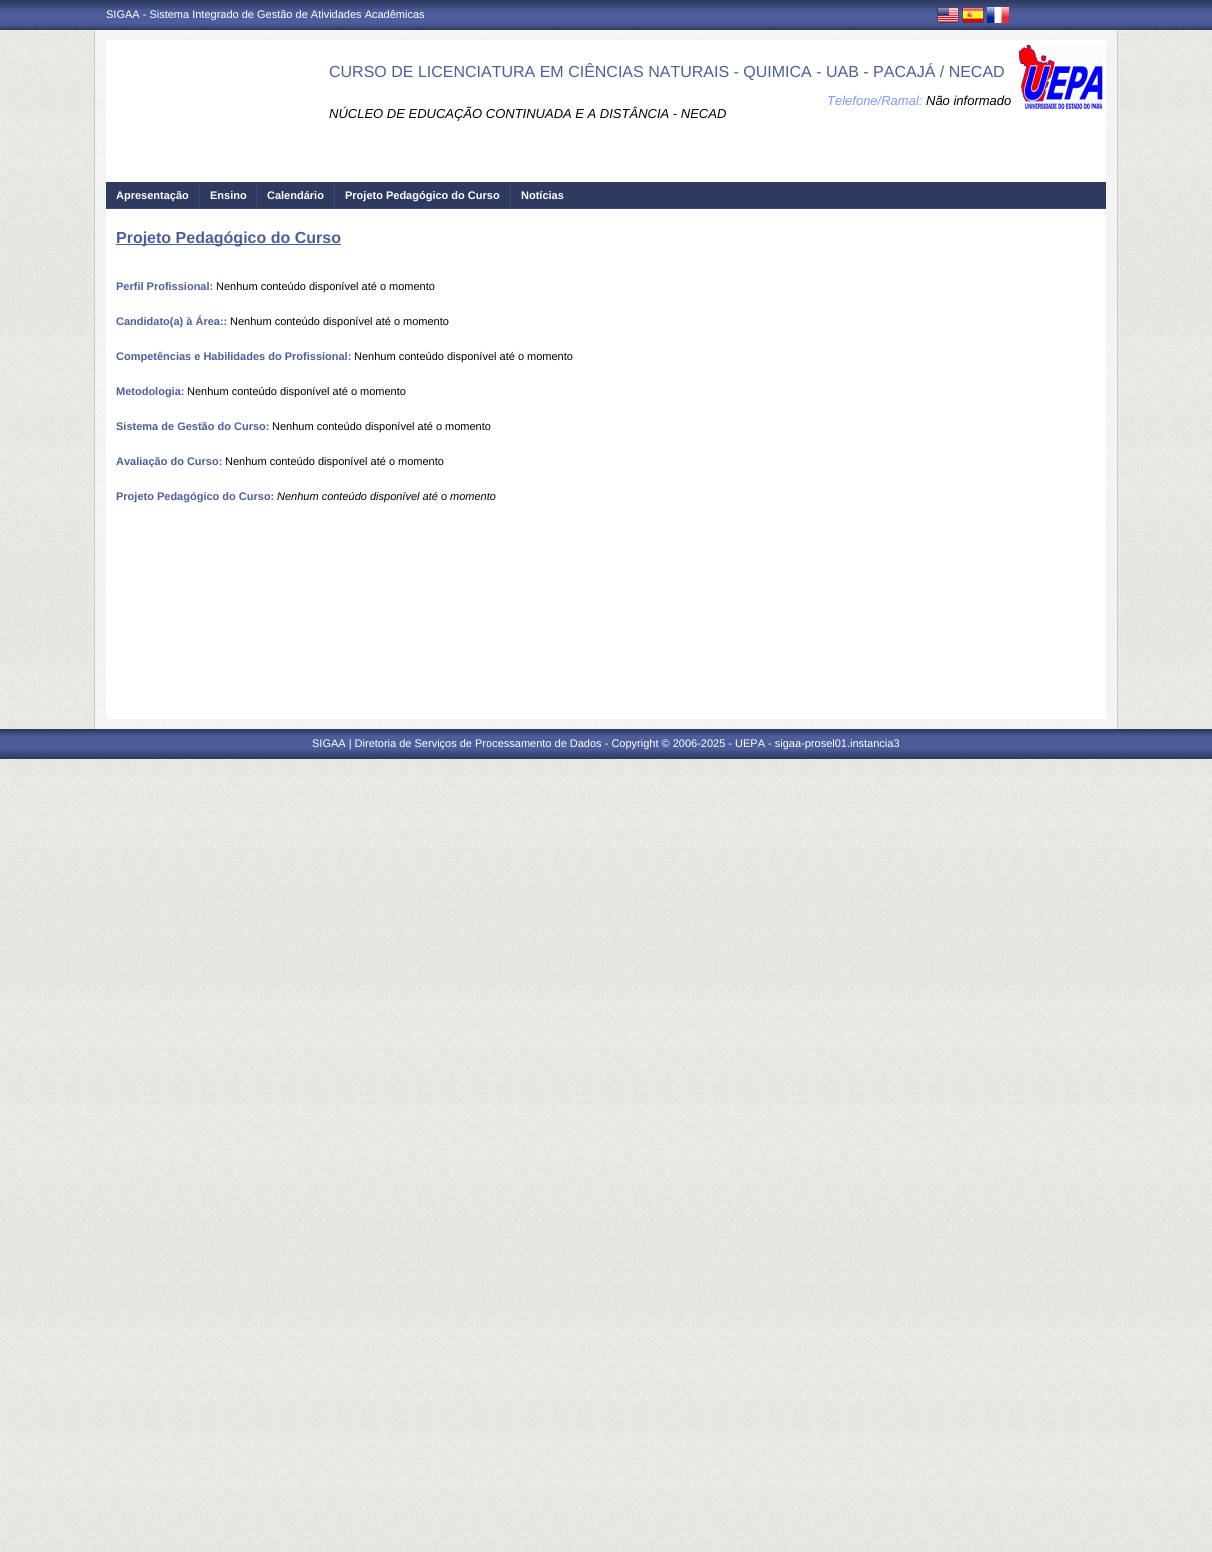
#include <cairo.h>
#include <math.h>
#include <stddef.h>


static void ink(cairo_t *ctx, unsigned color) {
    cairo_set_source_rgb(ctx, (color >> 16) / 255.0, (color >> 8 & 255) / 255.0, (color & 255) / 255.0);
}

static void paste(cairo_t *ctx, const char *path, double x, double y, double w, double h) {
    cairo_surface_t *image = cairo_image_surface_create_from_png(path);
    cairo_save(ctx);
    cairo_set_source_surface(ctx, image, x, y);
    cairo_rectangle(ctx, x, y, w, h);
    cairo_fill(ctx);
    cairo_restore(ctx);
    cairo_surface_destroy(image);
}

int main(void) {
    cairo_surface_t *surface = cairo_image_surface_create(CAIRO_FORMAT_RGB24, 1212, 1552);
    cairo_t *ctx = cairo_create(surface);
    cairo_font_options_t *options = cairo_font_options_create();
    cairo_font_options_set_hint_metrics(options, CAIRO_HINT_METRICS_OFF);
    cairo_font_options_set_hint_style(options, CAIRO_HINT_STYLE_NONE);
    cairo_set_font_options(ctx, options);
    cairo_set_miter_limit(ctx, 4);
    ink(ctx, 0xFFFFFF);
    cairo_paint(ctx);
    paste(ctx, "media/1.png", 0, 30, 1212, 1522);
    paste(ctx, "media/2.png", 0, 0, 1212, 30);
    paste(ctx, "media/3.png", 0, 729, 1212, 30);
    cairo_select_font_face(ctx, "Liberation Sans", CAIRO_FONT_SLANT_NORMAL, CAIRO_FONT_WEIGHT_NORMAL);
    cairo_set_font_size(ctx, 11);
    ink(ctx, 0xFFFFFF);
    cairo_move_to(ctx, 106, 18);
    cairo_show_text(ctx, "SIGAA - Sistema Integrado de Gestão de Atividades Acadêmicas");
    paste(ctx, "media/4.png", 937, 7, 22, 16);
    paste(ctx, "media/5.png", 962, 7, 22, 16);
    paste(ctx, "media/6.png", 987, 7, 22, 16);
    paste(ctx, "media/8.png", 95, 30, 1022, 699);
    cairo_rectangle(ctx, 106, 40, 1000, 679);
    cairo_fill(ctx);
    paste(ctx, "media/7.png", 1019, 45, 84, 64);
    ink(ctx, 0xCACAC7);
    cairo_rectangle(ctx, 1117, 30, 1, 699);
    cairo_fill(ctx);
    cairo_rectangle(ctx, 94, 30, 1, 699);
    cairo_fill(ctx);
    cairo_set_font_size(ctx, 16);
    ink(ctx, 0x4D5D9C);
    cairo_move_to(ctx, 329, 77);
    cairo_show_text(ctx, "CURSO DE LICENCIATURA EM CIÊNCIAS NATURAIS - QUIMICA - UAB - PACAJÁ / NECAD");
    cairo_select_font_face(ctx, "Liberation Sans", CAIRO_FONT_SLANT_ITALIC, CAIRO_FONT_WEIGHT_NORMAL);
    cairo_set_font_size(ctx, 13);
    ink(ctx, 0x7D97FE);
    cairo_move_to(ctx, 827, 105);
    cairo_show_text(ctx, "Telefone/Ramal:");
    ink(ctx, 0x000000);
    cairo_move_to(ctx, 926, 105);
    cairo_show_text(ctx, "Não informado");
    cairo_move_to(ctx, 329, 118);
    cairo_show_text(ctx, "NÚCLEO DE EDUCAÇÃO CONTINUADA E A DISTÂNCIA - NECAD");
    ink(ctx, 0x2F3A60);
    cairo_rectangle(ctx, 106, 182, 1000, 26);
    cairo_fill(ctx);
    ink(ctx, 0x3B4878);
    cairo_rectangle(ctx, 106, 208, 1000, 1);
    cairo_fill(ctx);
    cairo_select_font_face(ctx, "Liberation Sans", CAIRO_FONT_SLANT_NORMAL, CAIRO_FONT_WEIGHT_BOLD);
    cairo_set_font_size(ctx, 11);
    ink(ctx, 0xFFFFFF);
    cairo_move_to(ctx, 116, 199);
    cairo_show_text(ctx, "Apresentação");
    ink(ctx, 0x3B4878);
    cairo_rectangle(ctx, 199, 182, 1, 27);
    cairo_fill(ctx);
    ink(ctx, 0xFFFFFF);
    cairo_move_to(ctx, 210, 199);
    cairo_show_text(ctx, "Ensino");
    ink(ctx, 0x3B4878);
    cairo_rectangle(ctx, 256, 182, 1, 27);
    cairo_fill(ctx);
    ink(ctx, 0xFFFFFF);
    cairo_move_to(ctx, 267, 199);
    cairo_show_text(ctx, "Calendário");
    ink(ctx, 0x3B4878);
    cairo_rectangle(ctx, 334, 182, 1, 27);
    cairo_fill(ctx);
    ink(ctx, 0xFFFFFF);
    cairo_move_to(ctx, 345, 199);
    cairo_show_text(ctx, "Projeto Pedagógico do Curso");
    ink(ctx, 0x3B4878);
    cairo_rectangle(ctx, 510, 182, 1, 27);
    cairo_fill(ctx);
    ink(ctx, 0xFFFFFF);
    cairo_move_to(ctx, 521, 199);
    cairo_show_text(ctx, "Notícias");
    ink(ctx, 0x4D5D9C);
    cairo_rectangle(ctx, 116, 244, 225, 1);
    cairo_fill(ctx);
    cairo_set_font_size(ctx, 16);
    cairo_move_to(ctx, 116, 243);
    cairo_show_text(ctx, "Projeto Pedagógico do Curso");
    cairo_set_font_size(ctx, 11);
    cairo_move_to(ctx, 116, 290);
    cairo_show_text(ctx, "Perfil Profissional:");
    cairo_select_font_face(ctx, "Liberation Sans", CAIRO_FONT_SLANT_NORMAL, CAIRO_FONT_WEIGHT_NORMAL);
    ink(ctx, 0x000000);
    cairo_move_to(ctx, 216, 290);
    cairo_show_text(ctx, "Nenhum conteúdo disponível até o momento");
    cairo_select_font_face(ctx, "Liberation Sans", CAIRO_FONT_SLANT_NORMAL, CAIRO_FONT_WEIGHT_BOLD);
    ink(ctx, 0x4D5D9C);
    cairo_move_to(ctx, 116, 325);
    cairo_show_text(ctx, "Candidato(a) à Área::");
    cairo_select_font_face(ctx, "Liberation Sans", CAIRO_FONT_SLANT_NORMAL, CAIRO_FONT_WEIGHT_NORMAL);
    ink(ctx, 0x000000);
    cairo_move_to(ctx, 230, 325);
    cairo_show_text(ctx, "Nenhum conteúdo disponível até o momento");
    cairo_select_font_face(ctx, "Liberation Sans", CAIRO_FONT_SLANT_NORMAL, CAIRO_FONT_WEIGHT_BOLD);
    ink(ctx, 0x4D5D9C);
    cairo_move_to(ctx, 116, 360);
    cairo_show_text(ctx, "Competências e Habilidades do Profissional:");
    cairo_select_font_face(ctx, "Liberation Sans", CAIRO_FONT_SLANT_NORMAL, CAIRO_FONT_WEIGHT_NORMAL);
    ink(ctx, 0x000000);
    cairo_move_to(ctx, 354, 360);
    cairo_show_text(ctx, "Nenhum conteúdo disponível até o momento");
    cairo_select_font_face(ctx, "Liberation Sans", CAIRO_FONT_SLANT_NORMAL, CAIRO_FONT_WEIGHT_BOLD);
    ink(ctx, 0x4D5D9C);
    cairo_move_to(ctx, 116, 395);
    cairo_show_text(ctx, "Metodologia:");
    cairo_select_font_face(ctx, "Liberation Sans", CAIRO_FONT_SLANT_NORMAL, CAIRO_FONT_WEIGHT_NORMAL);
    ink(ctx, 0x000000);
    cairo_move_to(ctx, 187, 395);
    cairo_show_text(ctx, "Nenhum conteúdo disponível até o momento");
    cairo_select_font_face(ctx, "Liberation Sans", CAIRO_FONT_SLANT_NORMAL, CAIRO_FONT_WEIGHT_BOLD);
    ink(ctx, 0x4D5D9C);
    cairo_move_to(ctx, 116, 430);
    cairo_show_text(ctx, "Sistema de Gestão do Curso:");
    cairo_select_font_face(ctx, "Liberation Sans", CAIRO_FONT_SLANT_NORMAL, CAIRO_FONT_WEIGHT_NORMAL);
    ink(ctx, 0x000000);
    cairo_move_to(ctx, 272, 430);
    cairo_show_text(ctx, "Nenhum conteúdo disponível até o momento");
    cairo_select_font_face(ctx, "Liberation Sans", CAIRO_FONT_SLANT_NORMAL, CAIRO_FONT_WEIGHT_BOLD);
    ink(ctx, 0x4D5D9C);
    cairo_move_to(ctx, 116, 465);
    cairo_show_text(ctx, "Avaliação do Curso:");
    cairo_select_font_face(ctx, "Liberation Sans", CAIRO_FONT_SLANT_NORMAL, CAIRO_FONT_WEIGHT_NORMAL);
    ink(ctx, 0x000000);
    cairo_move_to(ctx, 225, 465);
    cairo_show_text(ctx, "Nenhum conteúdo disponível até o momento");
    cairo_select_font_face(ctx, "Liberation Sans", CAIRO_FONT_SLANT_NORMAL, CAIRO_FONT_WEIGHT_BOLD);
    ink(ctx, 0x4D5D9C);
    cairo_move_to(ctx, 116, 500);
    cairo_show_text(ctx, "Projeto Pedagógico do Curso:");
    cairo_select_font_face(ctx, "Liberation Sans", CAIRO_FONT_SLANT_ITALIC, CAIRO_FONT_WEIGHT_NORMAL);
    ink(ctx, 0x000000);
    cairo_move_to(ctx, 277, 500);
    cairo_show_text(ctx, "Nenhum conteúdo disponível até o momento");
    cairo_select_font_face(ctx, "Liberation Sans", CAIRO_FONT_SLANT_NORMAL, CAIRO_FONT_WEIGHT_NORMAL);
    ink(ctx, 0xFFFFFF);
    cairo_move_to(ctx, 312, 747);
    cairo_show_text(ctx, "SIGAA | Diretoria de Serviços de Processamento de Dados - Copyright © 2006-2025 - UEPA - sigaa-prosel01.instancia3");
    cairo_surface_write_to_png(surface, "image.png");
    cairo_font_options_destroy(options);
    cairo_destroy(ctx);
    cairo_surface_destroy(surface);
    return 0;
}
